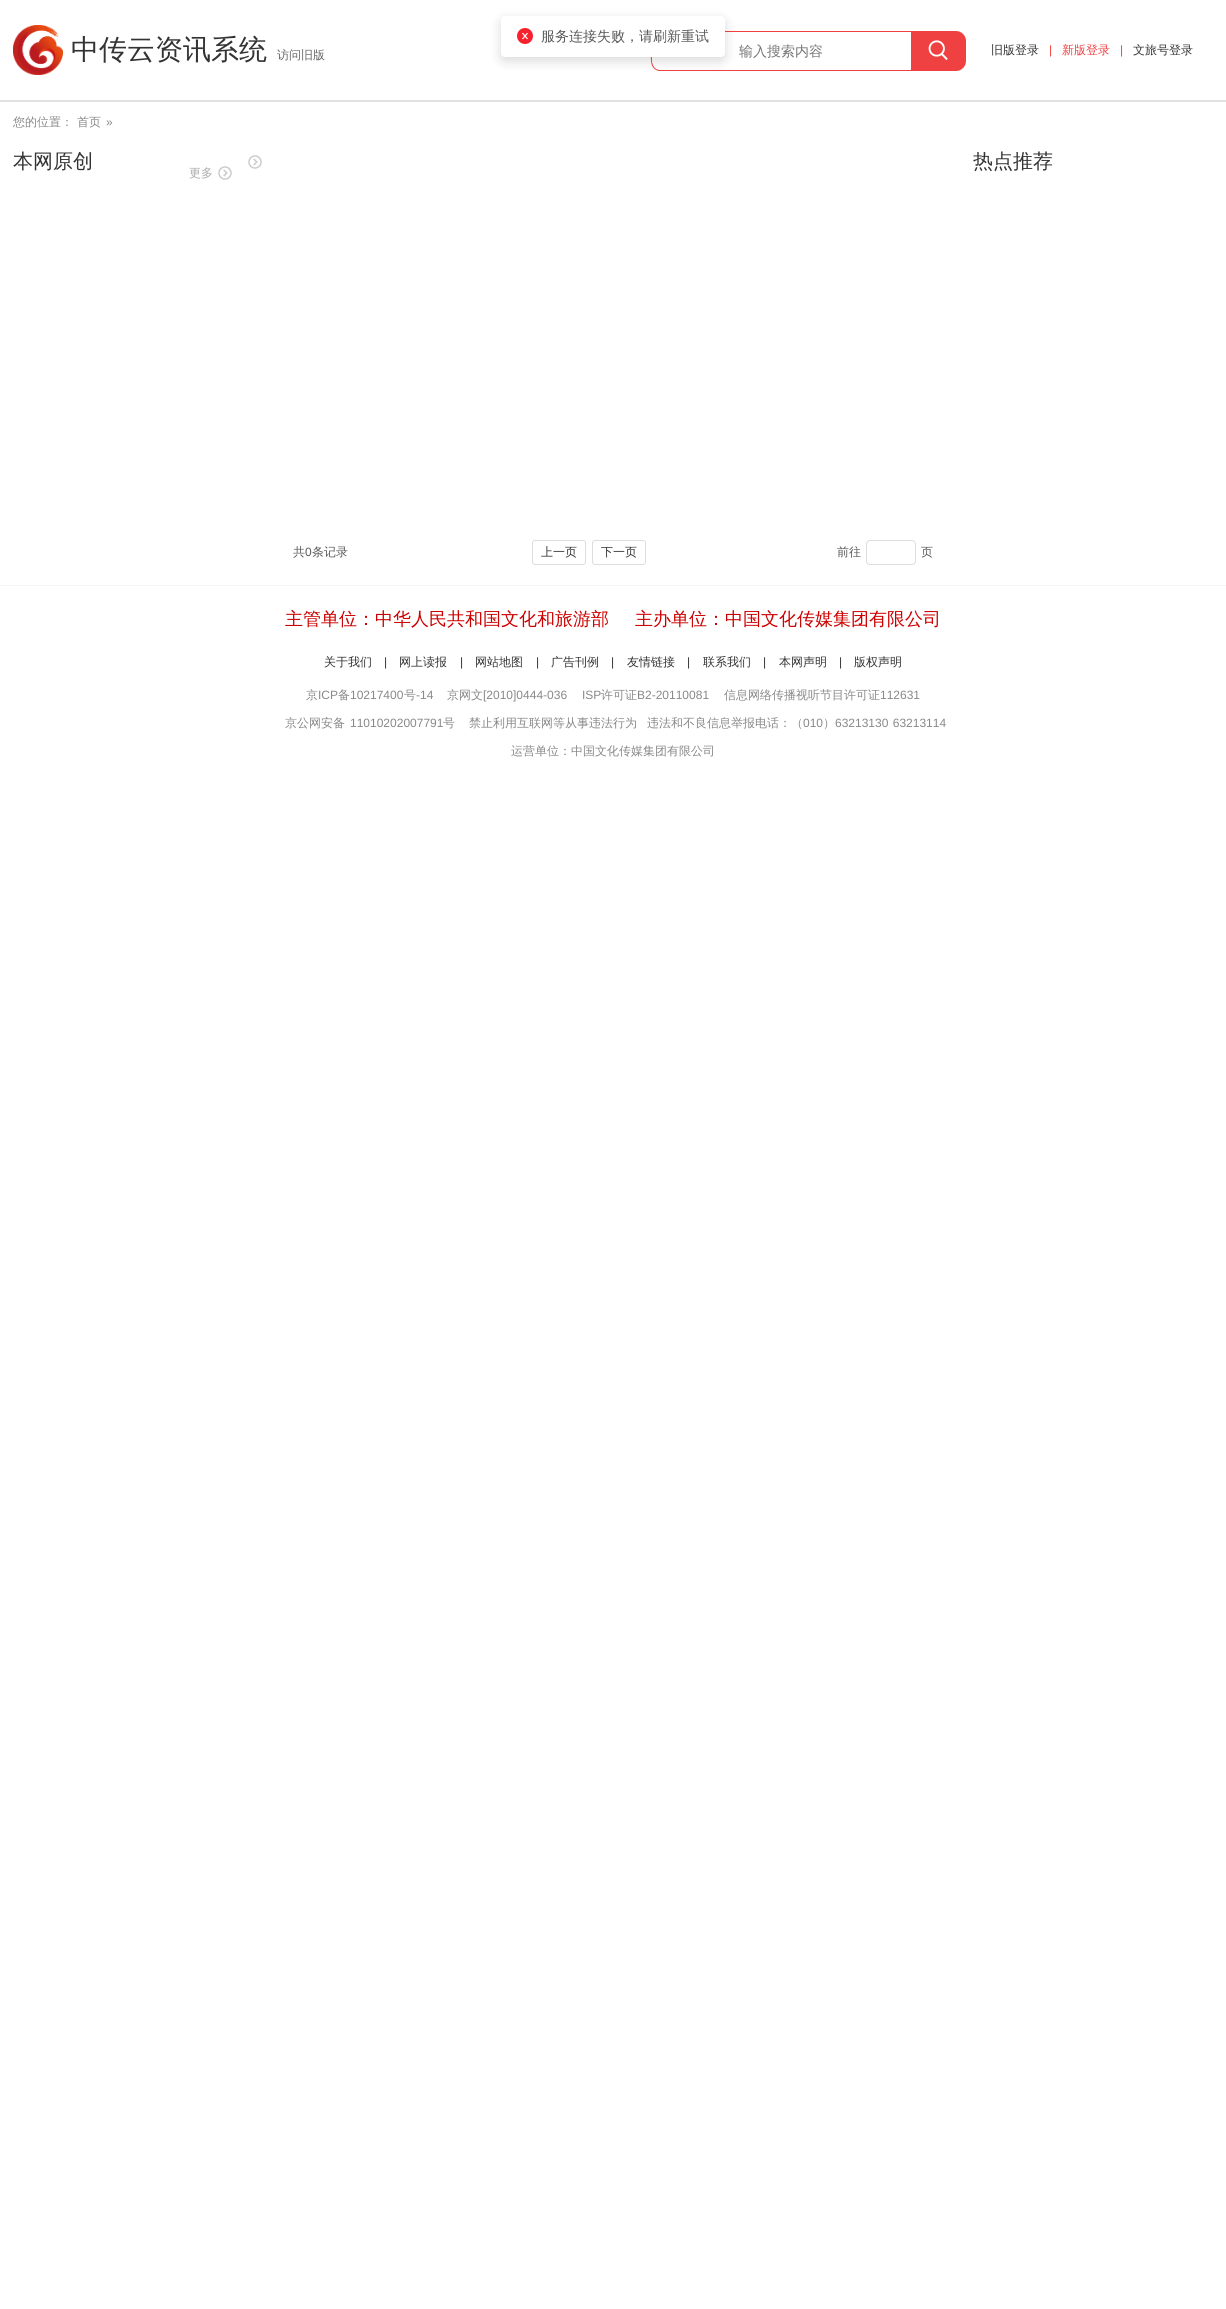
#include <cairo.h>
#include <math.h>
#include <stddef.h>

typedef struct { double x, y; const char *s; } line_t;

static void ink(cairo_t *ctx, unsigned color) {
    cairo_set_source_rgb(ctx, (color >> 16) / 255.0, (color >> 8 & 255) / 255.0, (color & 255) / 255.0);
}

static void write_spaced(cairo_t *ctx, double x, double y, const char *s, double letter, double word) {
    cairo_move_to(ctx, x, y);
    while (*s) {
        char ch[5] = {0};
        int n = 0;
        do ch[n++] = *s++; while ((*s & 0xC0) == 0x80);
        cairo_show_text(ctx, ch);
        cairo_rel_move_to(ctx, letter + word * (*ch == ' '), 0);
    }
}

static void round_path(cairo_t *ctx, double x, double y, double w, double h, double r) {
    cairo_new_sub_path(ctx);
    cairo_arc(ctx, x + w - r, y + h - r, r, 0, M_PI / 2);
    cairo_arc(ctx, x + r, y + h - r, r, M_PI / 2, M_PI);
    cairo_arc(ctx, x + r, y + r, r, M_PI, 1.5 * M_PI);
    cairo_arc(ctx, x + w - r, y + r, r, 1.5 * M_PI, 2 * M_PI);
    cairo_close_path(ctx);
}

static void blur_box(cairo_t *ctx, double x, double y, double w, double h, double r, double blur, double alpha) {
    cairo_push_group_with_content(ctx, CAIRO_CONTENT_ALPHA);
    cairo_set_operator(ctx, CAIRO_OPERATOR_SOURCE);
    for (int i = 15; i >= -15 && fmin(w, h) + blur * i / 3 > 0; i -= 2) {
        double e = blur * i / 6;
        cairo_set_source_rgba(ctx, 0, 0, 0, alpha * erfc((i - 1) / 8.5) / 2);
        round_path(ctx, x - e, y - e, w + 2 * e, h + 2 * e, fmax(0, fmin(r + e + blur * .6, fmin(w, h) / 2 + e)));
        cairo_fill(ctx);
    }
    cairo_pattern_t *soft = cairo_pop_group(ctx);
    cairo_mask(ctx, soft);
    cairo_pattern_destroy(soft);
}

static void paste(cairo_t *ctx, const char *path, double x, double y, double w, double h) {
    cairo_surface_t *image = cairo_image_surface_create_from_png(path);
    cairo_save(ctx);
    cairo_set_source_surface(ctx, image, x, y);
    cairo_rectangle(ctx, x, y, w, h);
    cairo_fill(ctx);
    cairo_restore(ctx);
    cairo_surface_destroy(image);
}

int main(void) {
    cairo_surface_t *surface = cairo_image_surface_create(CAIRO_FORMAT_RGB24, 1226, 2309);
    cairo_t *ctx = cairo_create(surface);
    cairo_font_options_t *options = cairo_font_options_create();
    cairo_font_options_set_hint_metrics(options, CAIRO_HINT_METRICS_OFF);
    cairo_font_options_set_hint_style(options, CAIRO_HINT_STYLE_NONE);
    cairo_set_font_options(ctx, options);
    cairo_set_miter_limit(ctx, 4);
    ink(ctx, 0xFFFFFF);
    cairo_paint(ctx);
    ink(ctx, 0xF04142);
    cairo_set_fill_rule(ctx, CAIRO_FILL_RULE_EVEN_ODD);
    cairo_new_path(ctx);
    cairo_move_to(ctx, 661, 31);
    cairo_line_to(ctx, 911, 31);
    cairo_line_to(ctx, 911, 71);
    cairo_line_to(ctx, 659, 71);
    cairo_curve_to(ctx, 649, 69, 651, 58, 651, 51);
    cairo_curve_to(ctx, 651, 43, 650, 31, 661, 31);
    cairo_close_path(ctx);
    cairo_move_to(ctx, 661, 32);
    cairo_line_to(ctx, 911, 32);
    cairo_line_to(ctx, 911, 70);
    cairo_line_to(ctx, 659, 70);
    cairo_curve_to(ctx, 650, 68, 652, 58, 652, 51);
    cairo_curve_to(ctx, 652, 44, 650, 32, 661, 32);
    cairo_close_path(ctx);
    cairo_fill(ctx);
    ink(ctx, 0x000000);
    blur_box(ctx, 501, 20, 224, 41, 4, 6, 0.15);
    ink(ctx, 0xFFFFFF);
    round_path(ctx, 501, 16, 224, 41, 4);
    cairo_fill(ctx);
    paste(ctx, "media/1.png", 517, 28, 16, 16);
    cairo_select_font_face(ctx, "WenQuanYi Zen Hei Medium", CAIRO_FONT_SLANT_NORMAL, CAIRO_FONT_WEIGHT_NORMAL);
    cairo_set_font_size(ctx, 14);
    ink(ctx, 0x595959);
    cairo_move_to(ctx, 541, 41);
    cairo_show_text(ctx, "服务连接失败，请刷新重试");
    ink(ctx, 0xE2E2E2);
    cairo_rectangle(ctx, 0, 100, 1226, 2);
    cairo_fill(ctx);
    paste(ctx, "media/2.png", 13, 25, 50, 50);
    cairo_set_font_size(ctx, 28);
    ink(ctx, 0x333333);
    cairo_move_to(ctx, 71, 59);
    cairo_show_text(ctx, "中传云资讯系统");
    cairo_set_font_size(ctx, 12);
    ink(ctx, 0x666666);
    cairo_move_to(ctx, 277, 59);
    cairo_show_text(ctx, "访问旧版");
    cairo_set_font_size(ctx, 14);
    ink(ctx, 0x757575);
    cairo_move_to(ctx, 739, 56);
    cairo_show_text(ctx, "输入搜索内容");
    ink(ctx, 0xF04142);
    cairo_new_path(ctx);
    cairo_move_to(ctx, 911, 31);
    cairo_line_to(ctx, 956, 31);
    cairo_curve_to(ctx, 961.5, 31, 966, 35.5, 966, 41);
    cairo_line_to(ctx, 966, 61);
    cairo_curve_to(ctx, 966, 66.5, 961.5, 71, 956, 71);
    cairo_line_to(ctx, 911, 71);
    cairo_close_path(ctx);
    cairo_fill(ctx);
    paste(ctx, "media/3.png", 928, 40, 20, 21);
    cairo_set_font_size(ctx, 12);
    ink(ctx, 0x333333);
    cairo_move_to(ctx, 991, 54);
    cairo_show_text(ctx, "旧版登录");
    cairo_select_font_face(ctx, "Liberation Sans", CAIRO_FONT_SLANT_NORMAL, CAIRO_FONT_WEIGHT_NORMAL);
    ink(ctx, 0xF04142);
    cairo_move_to(ctx, 1049, 54);
    cairo_show_text(ctx, "|");
    cairo_select_font_face(ctx, "WenQuanYi Zen Hei Medium", CAIRO_FONT_SLANT_NORMAL, CAIRO_FONT_WEIGHT_NORMAL);
    cairo_move_to(ctx, 1062, 54);
    cairo_show_text(ctx, "新版登录");
    cairo_select_font_face(ctx, "Liberation Sans", CAIRO_FONT_SLANT_NORMAL, CAIRO_FONT_WEIGHT_NORMAL);
    cairo_move_to(ctx, 1120, 54);
    cairo_show_text(ctx, "|");
    cairo_select_font_face(ctx, "WenQuanYi Zen Hei Medium", CAIRO_FONT_SLANT_NORMAL, CAIRO_FONT_WEIGHT_NORMAL);
    ink(ctx, 0x333333);
    cairo_move_to(ctx, 1133, 54);
    cairo_show_text(ctx, "文旅号登录");
    ink(ctx, 0x888888);
    cairo_move_to(ctx, 13, 126);
    cairo_show_text(ctx, "您的位置：");
    cairo_move_to(ctx, 77, 126);
    cairo_show_text(ctx, "首页");
    cairo_select_font_face(ctx, "Liberation Sans", CAIRO_FONT_SLANT_NORMAL, CAIRO_FONT_WEIGHT_NORMAL);
    cairo_move_to(ctx, 106, 126);
    cairo_show_text(ctx, "»");
    cairo_select_font_face(ctx, "WenQuanYi Zen Hei Medium", CAIRO_FONT_SLANT_NORMAL, CAIRO_FONT_WEIGHT_NORMAL);
    cairo_set_font_size(ctx, 20);
    ink(ctx, 0x333333);
    cairo_move_to(ctx, 13, 168);
    cairo_show_text(ctx, "本网原创");
    paste(ctx, "media/4.png", 248, 155, 14, 14);
    paste(ctx, "media/4.png", 218, 166, 14, 14);
    cairo_set_font_size(ctx, 12);
    ink(ctx, 0xAAAAAA);
    cairo_move_to(ctx, 189, 177);
    cairo_show_text(ctx, "更多");
    cairo_set_font_size(ctx, 20);
    ink(ctx, 0x333333);
    cairo_move_to(ctx, 973, 168);
    cairo_show_text(ctx, "热点推荐");
    cairo_set_font_size(ctx, 12);
    ink(ctx, 0x595959);
    cairo_move_to(ctx, 293, 556);
    cairo_show_text(ctx, "共");
    cairo_select_font_face(ctx, "Liberation Sans", CAIRO_FONT_SLANT_NORMAL, CAIRO_FONT_WEIGHT_NORMAL);
    cairo_move_to(ctx, 305, 556);
    cairo_show_text(ctx, "0");
    cairo_select_font_face(ctx, "WenQuanYi Zen Hei Medium", CAIRO_FONT_SLANT_NORMAL, CAIRO_FONT_WEIGHT_NORMAL);
    cairo_move_to(ctx, 312, 556);
    cairo_show_text(ctx, "条记录");
    round_path(ctx, 532.5, 540.5, 53, 24, 2.5);
    ink(ctx, 0xDDDDDD);
    cairo_set_line_width(ctx, 1);
    cairo_stroke(ctx);
    ink(ctx, 0x333333);
    cairo_move_to(ctx, 541, 556);
    cairo_show_text(ctx, "上一页");
    round_path(ctx, 592.5, 540.5, 53, 24, 2.5);
    ink(ctx, 0xDDDDDD);
    cairo_stroke(ctx);
    ink(ctx, 0x333333);
    cairo_move_to(ctx, 601, 556);
    cairo_show_text(ctx, "下一页");
    ink(ctx, 0x595959);
    cairo_move_to(ctx, 837, 556);
    cairo_show_text(ctx, "前往");
    round_path(ctx, 866.5, 540.5, 49, 24, 3.5);
    ink(ctx, 0xDDDDDD);
    cairo_stroke(ctx);
    ink(ctx, 0x595959);
    cairo_move_to(ctx, 921, 556);
    cairo_show_text(ctx, "页");
    ink(ctx, 0xF5F5F5);
    cairo_rectangle(ctx, 0, 585, 1226, 1);
    cairo_fill(ctx);
    cairo_set_font_size(ctx, 18);
    ink(ctx, 0xCC0000);
    cairo_move_to(ctx, 285, 625);
    cairo_show_text(ctx, "主管单位：中华人民共和国文化和旅游部");
    cairo_move_to(ctx, 635, 625);
    cairo_show_text(ctx, "主办单位：中国文化传媒集团有限公司");
    cairo_set_font_size(ctx, 12);
    ink(ctx, 0x333333);
    cairo_move_to(ctx, 324, 666);
    cairo_show_text(ctx, "关于我们");
    cairo_select_font_face(ctx, "Liberation Sans", CAIRO_FONT_SLANT_NORMAL, CAIRO_FONT_WEIGHT_NORMAL);
    cairo_move_to(ctx, 384, 666);
    cairo_show_text(ctx, "|");
    cairo_select_font_face(ctx, "WenQuanYi Zen Hei Medium", CAIRO_FONT_SLANT_NORMAL, CAIRO_FONT_WEIGHT_NORMAL);
    cairo_move_to(ctx, 399, 666);
    cairo_show_text(ctx, "网上读报");
    cairo_select_font_face(ctx, "Liberation Sans", CAIRO_FONT_SLANT_NORMAL, CAIRO_FONT_WEIGHT_NORMAL);
    cairo_move_to(ctx, 460, 666);
    cairo_show_text(ctx, "|");
    cairo_select_font_face(ctx, "WenQuanYi Zen Hei Medium", CAIRO_FONT_SLANT_NORMAL, CAIRO_FONT_WEIGHT_NORMAL);
    cairo_move_to(ctx, 475, 666);
    cairo_show_text(ctx, "网站地图");
    cairo_select_font_face(ctx, "Liberation Sans", CAIRO_FONT_SLANT_NORMAL, CAIRO_FONT_WEIGHT_NORMAL);
    cairo_move_to(ctx, 536, 666);
    cairo_show_text(ctx, "|");
    cairo_select_font_face(ctx, "WenQuanYi Zen Hei Medium", CAIRO_FONT_SLANT_NORMAL, CAIRO_FONT_WEIGHT_NORMAL);
    cairo_move_to(ctx, 551, 666);
    cairo_show_text(ctx, "广告刊例");
    cairo_select_font_face(ctx, "Liberation Sans", CAIRO_FONT_SLANT_NORMAL, CAIRO_FONT_WEIGHT_NORMAL);
    cairo_move_to(ctx, 611, 666);
    cairo_show_text(ctx, "|");
    cairo_select_font_face(ctx, "WenQuanYi Zen Hei Medium", CAIRO_FONT_SLANT_NORMAL, CAIRO_FONT_WEIGHT_NORMAL);
    cairo_move_to(ctx, 627, 666);
    cairo_show_text(ctx, "友情链接");
    cairo_select_font_face(ctx, "Liberation Sans", CAIRO_FONT_SLANT_NORMAL, CAIRO_FONT_WEIGHT_NORMAL);
    cairo_move_to(ctx, 687, 666);
    cairo_show_text(ctx, "|");
    cairo_select_font_face(ctx, "WenQuanYi Zen Hei Medium", CAIRO_FONT_SLANT_NORMAL, CAIRO_FONT_WEIGHT_NORMAL);
    cairo_move_to(ctx, 703, 666);
    cairo_show_text(ctx, "联系我们");
    cairo_select_font_face(ctx, "Liberation Sans", CAIRO_FONT_SLANT_NORMAL, CAIRO_FONT_WEIGHT_NORMAL);
    cairo_move_to(ctx, 763, 666);
    cairo_show_text(ctx, "|");
    cairo_select_font_face(ctx, "WenQuanYi Zen Hei Medium", CAIRO_FONT_SLANT_NORMAL, CAIRO_FONT_WEIGHT_NORMAL);
    cairo_move_to(ctx, 779, 666);
    cairo_show_text(ctx, "本网声明");
    cairo_select_font_face(ctx, "Liberation Sans", CAIRO_FONT_SLANT_NORMAL, CAIRO_FONT_WEIGHT_NORMAL);
    cairo_move_to(ctx, 839, 666);
    cairo_show_text(ctx, "|");
    cairo_select_font_face(ctx, "WenQuanYi Zen Hei Medium", CAIRO_FONT_SLANT_NORMAL, CAIRO_FONT_WEIGHT_NORMAL);
    cairo_move_to(ctx, 854, 666);
    cairo_show_text(ctx, "版权声明");
    ink(ctx, 0x888888);
    cairo_move_to(ctx, 306, 699);
    cairo_show_text(ctx, "京");
    cairo_select_font_face(ctx, "Liberation Sans", CAIRO_FONT_SLANT_NORMAL, CAIRO_FONT_WEIGHT_NORMAL);
    cairo_move_to(ctx, 318, 699);
    cairo_show_text(ctx, "ICP");
    cairo_select_font_face(ctx, "WenQuanYi Zen Hei Medium", CAIRO_FONT_SLANT_NORMAL, CAIRO_FONT_WEIGHT_NORMAL);
    cairo_move_to(ctx, 338, 699);
    cairo_show_text(ctx, "备");
    cairo_select_font_face(ctx, "Liberation Sans", CAIRO_FONT_SLANT_NORMAL, CAIRO_FONT_WEIGHT_NORMAL);
    cairo_move_to(ctx, 350, 699);
    cairo_show_text(ctx, "10217400");
    cairo_select_font_face(ctx, "WenQuanYi Zen Hei Medium", CAIRO_FONT_SLANT_NORMAL, CAIRO_FONT_WEIGHT_NORMAL);
    cairo_move_to(ctx, 404, 699);
    cairo_show_text(ctx, "号");
    cairo_select_font_face(ctx, "Liberation Sans", CAIRO_FONT_SLANT_NORMAL, CAIRO_FONT_WEIGHT_NORMAL);
    cairo_move_to(ctx, 416, 699);
    cairo_show_text(ctx, "-14");
    cairo_select_font_face(ctx, "WenQuanYi Zen Hei Medium", CAIRO_FONT_SLANT_NORMAL, CAIRO_FONT_WEIGHT_NORMAL);
    cairo_move_to(ctx, 447, 699);
    cairo_show_text(ctx, "京网文");
    cairo_select_font_face(ctx, "Liberation Sans", CAIRO_FONT_SLANT_NORMAL, CAIRO_FONT_WEIGHT_NORMAL);
    cairo_move_to(ctx, 483, 699);
    cairo_show_text(ctx, "[2010]0444-036");
    cairo_move_to(ctx, 582, 699);
    cairo_show_text(ctx, "ISP");
    cairo_select_font_face(ctx, "WenQuanYi Zen Hei Medium", CAIRO_FONT_SLANT_NORMAL, CAIRO_FONT_WEIGHT_NORMAL);
    cairo_move_to(ctx, 601, 699);
    cairo_show_text(ctx, "许可证");
    cairo_select_font_face(ctx, "Liberation Sans", CAIRO_FONT_SLANT_NORMAL, CAIRO_FONT_WEIGHT_NORMAL);
    cairo_move_to(ctx, 637, 699);
    cairo_show_text(ctx, "B2-20110081");
    cairo_select_font_face(ctx, "WenQuanYi Zen Hei Medium", CAIRO_FONT_SLANT_NORMAL, CAIRO_FONT_WEIGHT_NORMAL);
    cairo_move_to(ctx, 724, 699);
    cairo_show_text(ctx, "信息网络传播视听节目许可证");
    cairo_select_font_face(ctx, "Liberation Sans", CAIRO_FONT_SLANT_NORMAL, CAIRO_FONT_WEIGHT_NORMAL);
    cairo_move_to(ctx, 880, 699);
    cairo_show_text(ctx, "112631");
    cairo_select_font_face(ctx, "WenQuanYi Zen Hei Medium", CAIRO_FONT_SLANT_NORMAL, CAIRO_FONT_WEIGHT_NORMAL);
    cairo_move_to(ctx, 285, 727);
    cairo_show_text(ctx, "京公网安备");
    cairo_select_font_face(ctx, "Liberation Sans", CAIRO_FONT_SLANT_NORMAL, CAIRO_FONT_WEIGHT_NORMAL);
    cairo_move_to(ctx, 350, 727);
    cairo_show_text(ctx, "11010202007791");
    cairo_select_font_face(ctx, "WenQuanYi Zen Hei Medium", CAIRO_FONT_SLANT_NORMAL, CAIRO_FONT_WEIGHT_NORMAL);
    {
        static const line_t items[] = {
            {443, 727, "号"},
            {469, 727, "禁止利用互联网等从事违法行为"},
            {647, 727, "违法和不良信息举报电话：（"},
        };
        for (size_t i = 0; i < sizeof items / sizeof *items; i++) {
            cairo_move_to(ctx, items[i].x, items[i].y);
            cairo_show_text(ctx, items[i].s);
        }
    }
    cairo_select_font_face(ctx, "Liberation Sans", CAIRO_FONT_SLANT_NORMAL, CAIRO_FONT_WEIGHT_NORMAL);
    cairo_move_to(ctx, 803, 727);
    cairo_show_text(ctx, "010");
    cairo_select_font_face(ctx, "WenQuanYi Zen Hei Medium", CAIRO_FONT_SLANT_NORMAL, CAIRO_FONT_WEIGHT_NORMAL);
    cairo_move_to(ctx, 823, 727);
    cairo_show_text(ctx, "）");
    cairo_select_font_face(ctx, "Liberation Sans", CAIRO_FONT_SLANT_NORMAL, CAIRO_FONT_WEIGHT_NORMAL);
    write_spaced(ctx, 835, 727, "63213130 63213114", 0, 1);
    cairo_select_font_face(ctx, "WenQuanYi Zen Hei Medium", CAIRO_FONT_SLANT_NORMAL, CAIRO_FONT_WEIGHT_NORMAL);
    cairo_move_to(ctx, 511, 755);
    cairo_show_text(ctx, "运营单位：中国文化传媒集团有限公司");
    cairo_surface_write_to_png(surface, "image.png");
    cairo_font_options_destroy(options);
    cairo_destroy(ctx);
    cairo_surface_destroy(surface);
    return 0;
}
